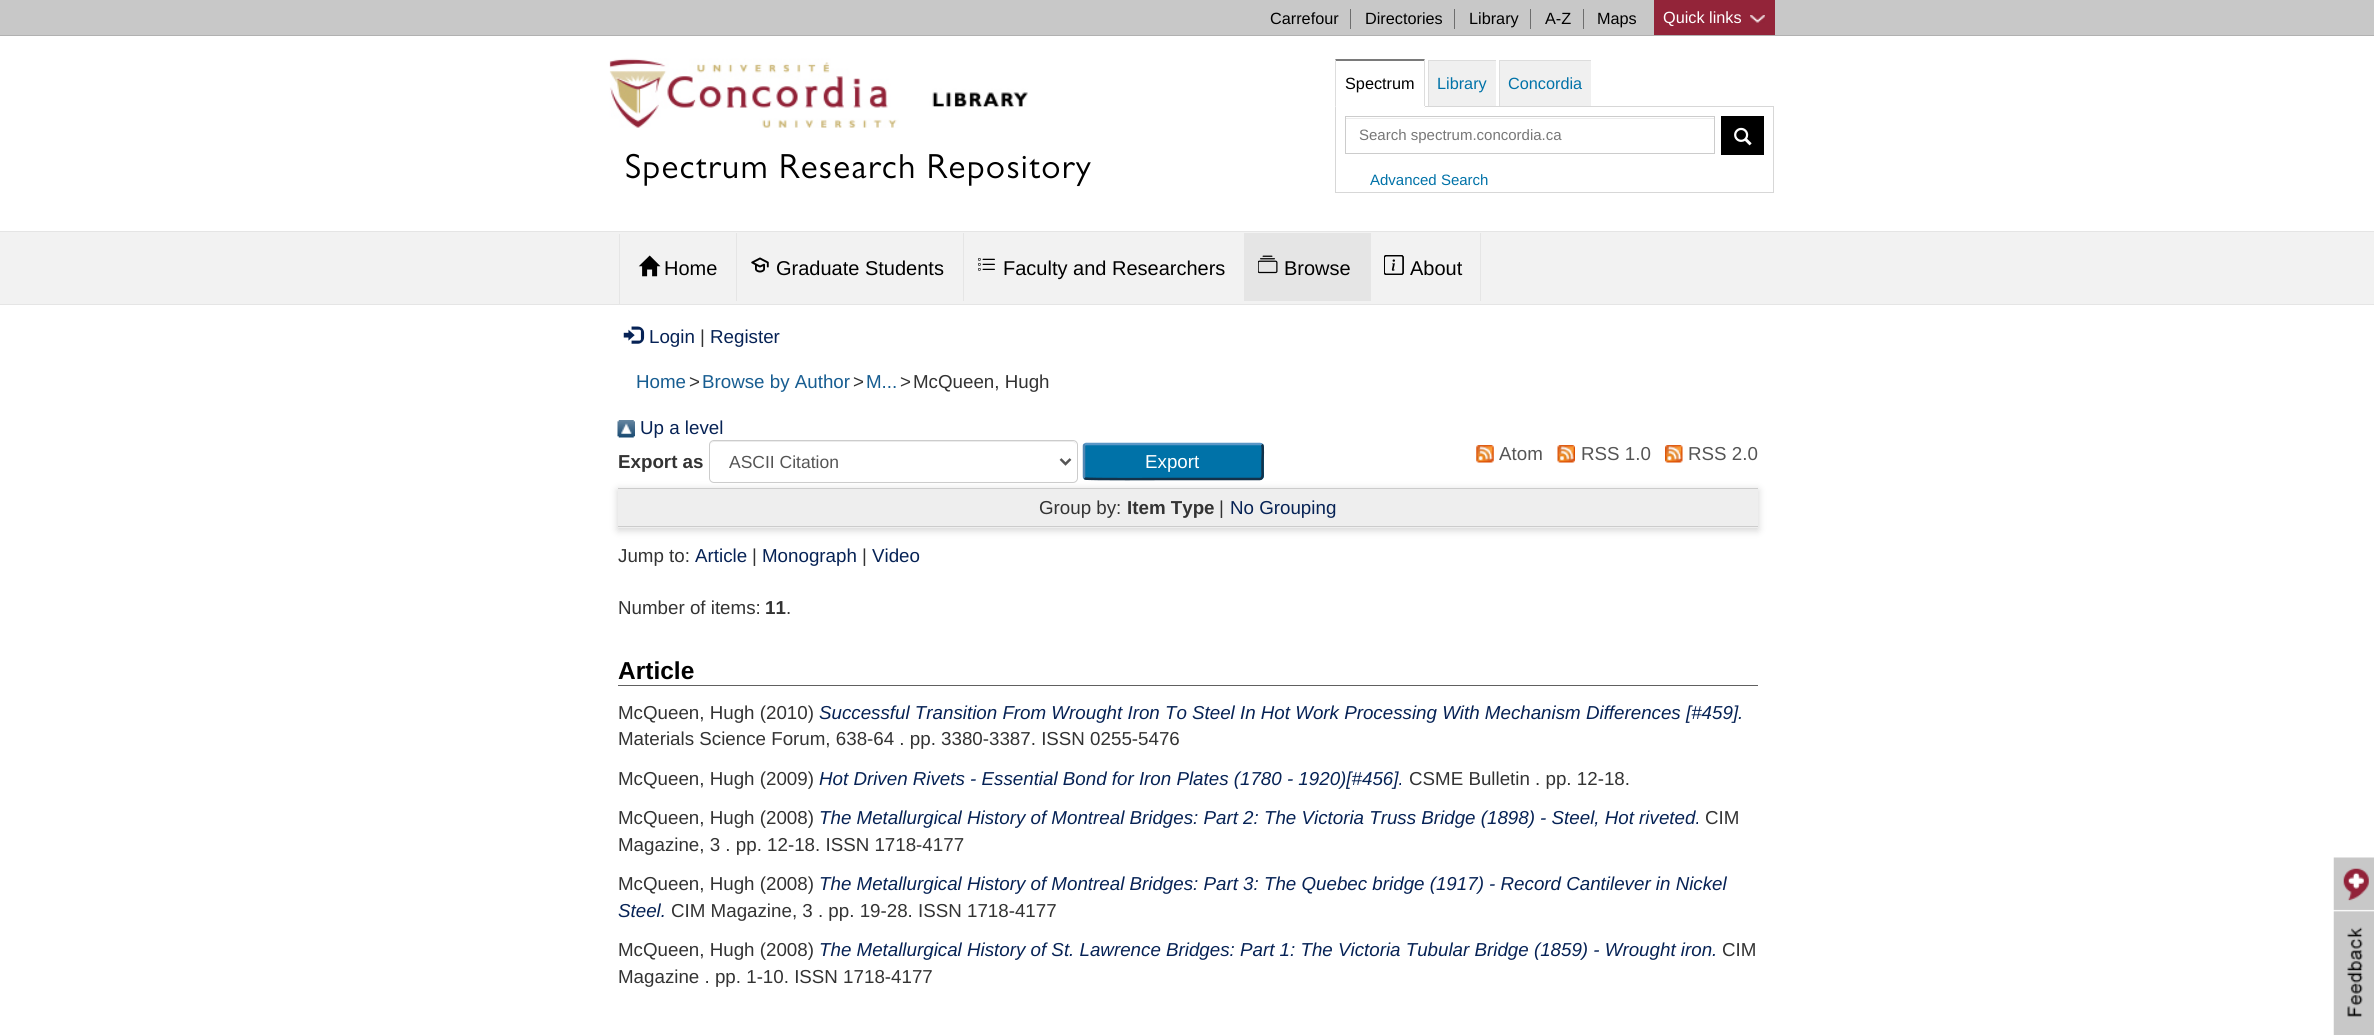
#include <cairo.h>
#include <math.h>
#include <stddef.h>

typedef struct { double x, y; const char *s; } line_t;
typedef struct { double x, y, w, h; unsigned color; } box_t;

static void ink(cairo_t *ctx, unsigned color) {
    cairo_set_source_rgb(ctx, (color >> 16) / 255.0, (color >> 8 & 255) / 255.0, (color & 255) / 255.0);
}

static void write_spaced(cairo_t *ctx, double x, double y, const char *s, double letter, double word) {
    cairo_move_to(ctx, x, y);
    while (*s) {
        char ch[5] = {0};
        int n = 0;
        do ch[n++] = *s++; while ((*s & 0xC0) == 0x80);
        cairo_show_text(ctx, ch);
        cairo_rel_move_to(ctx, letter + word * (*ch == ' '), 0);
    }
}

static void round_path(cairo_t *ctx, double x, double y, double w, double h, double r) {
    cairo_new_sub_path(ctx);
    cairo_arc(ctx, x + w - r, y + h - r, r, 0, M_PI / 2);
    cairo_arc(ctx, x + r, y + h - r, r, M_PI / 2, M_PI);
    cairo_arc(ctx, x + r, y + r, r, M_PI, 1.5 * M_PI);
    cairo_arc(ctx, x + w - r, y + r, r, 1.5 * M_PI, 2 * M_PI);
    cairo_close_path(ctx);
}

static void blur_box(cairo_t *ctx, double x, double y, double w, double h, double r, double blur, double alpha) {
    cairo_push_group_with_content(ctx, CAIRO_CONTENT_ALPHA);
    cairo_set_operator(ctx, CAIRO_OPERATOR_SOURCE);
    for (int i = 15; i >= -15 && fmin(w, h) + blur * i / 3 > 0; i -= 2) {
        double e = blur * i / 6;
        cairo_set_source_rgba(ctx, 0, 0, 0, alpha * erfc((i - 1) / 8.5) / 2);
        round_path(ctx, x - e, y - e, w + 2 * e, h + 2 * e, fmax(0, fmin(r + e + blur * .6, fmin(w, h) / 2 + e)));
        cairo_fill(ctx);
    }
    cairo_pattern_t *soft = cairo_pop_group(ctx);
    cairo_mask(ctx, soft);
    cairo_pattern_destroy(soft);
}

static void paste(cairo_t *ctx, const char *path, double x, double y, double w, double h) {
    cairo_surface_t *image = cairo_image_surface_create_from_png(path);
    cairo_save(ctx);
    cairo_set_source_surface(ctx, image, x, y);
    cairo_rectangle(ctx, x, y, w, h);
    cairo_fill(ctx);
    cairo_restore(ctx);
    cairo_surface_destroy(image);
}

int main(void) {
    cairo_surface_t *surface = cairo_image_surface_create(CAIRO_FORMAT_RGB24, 2374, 1035);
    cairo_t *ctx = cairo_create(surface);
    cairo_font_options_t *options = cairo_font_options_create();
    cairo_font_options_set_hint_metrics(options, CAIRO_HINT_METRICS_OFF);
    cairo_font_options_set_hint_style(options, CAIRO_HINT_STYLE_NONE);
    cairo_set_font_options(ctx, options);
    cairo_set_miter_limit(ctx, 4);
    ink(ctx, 0xFFFFFF);
    cairo_paint(ctx);
    ink(ctx, 0xC8C8C8);
    cairo_rectangle(ctx, 0, 0, 2374, 35);
    cairo_fill(ctx);
    ink(ctx, 0xB1B1B1);
    cairo_rectangle(ctx, 0, 35, 2374, 1);
    cairo_fill(ctx);
    cairo_select_font_face(ctx, "Liberation Sans", CAIRO_FONT_SLANT_NORMAL, CAIRO_FONT_WEIGHT_NORMAL);
    cairo_set_font_size(ctx, 16.25);
    ink(ctx, 0x000000);
    cairo_move_to(ctx, 1270, 24);
    cairo_show_text(ctx, "Carrefour");
    ink(ctx, 0x6E6E6E);
    cairo_rectangle(ctx, 1350, 9, 1, 20);
    cairo_fill(ctx);
    ink(ctx, 0x000000);
    cairo_move_to(ctx, 1365, 24);
    cairo_show_text(ctx, "Directories");
    ink(ctx, 0x6E6E6E);
    cairo_rectangle(ctx, 1454, 9, 1, 20);
    cairo_fill(ctx);
    ink(ctx, 0x000000);
    cairo_move_to(ctx, 1469, 24);
    cairo_show_text(ctx, "Library");
    ink(ctx, 0x6E6E6E);
    cairo_rectangle(ctx, 1530, 9, 1, 20);
    cairo_fill(ctx);
    ink(ctx, 0x000000);
    cairo_move_to(ctx, 1545, 24);
    cairo_show_text(ctx, "A-Z");
    ink(ctx, 0x6E6E6E);
    cairo_rectangle(ctx, 1583, 9, 1, 20);
    cairo_fill(ctx);
    ink(ctx, 0x000000);
    cairo_move_to(ctx, 1597, 24);
    cairo_show_text(ctx, "Maps");
    ink(ctx, 0x932439);
    cairo_rectangle(ctx, 1654, 0, 121, 35);
    cairo_fill(ctx);
    ink(ctx, 0xFFFFFF);
    cairo_move_to(ctx, 1663, 23);
    cairo_show_text(ctx, "Quick links");
    paste(ctx, "media/1.png", 1750, 15, 15, 8);
    paste(ctx, "media/2.png", 609, 58, 419, 70);
    cairo_select_font_face(ctx, "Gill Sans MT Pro", CAIRO_FONT_SLANT_NORMAL, CAIRO_FONT_WEIGHT_NORMAL);
    cairo_set_font_size(ctx, 35);
    ink(ctx, 0x000000);
    write_spaced(ctx, 625, 178, "Spectrum Research Repository", 1.25, 0);
    ink(ctx, 0x7A7A7A);
    cairo_new_path(ctx);
    cairo_move_to(ctx, 1335, 59);
    cairo_line_to(ctx, 1425, 59);
    cairo_line_to(ctx, 1424, 61);
    cairo_line_to(ctx, 1336, 61);
    cairo_close_path(ctx);
    cairo_fill(ctx);
    cairo_rectangle(ctx, 1335.5, 106.5, 438, 86);
    ink(ctx, 0xD7D7D7);
    cairo_set_line_width(ctx, 1);
    cairo_stroke(ctx);
    ink(ctx, 0xDDDDDD);
    cairo_new_path(ctx);
    cairo_move_to(ctx, 1425, 59);
    cairo_line_to(ctx, 1425, 108);
    cairo_line_to(ctx, 1424, 106);
    cairo_line_to(ctx, 1424, 61);
    cairo_close_path(ctx);
    cairo_fill(ctx);
    ink(ctx, 0xFFFFFF);
    cairo_rectangle(ctx, 1335, 106, 90, 1);
    cairo_fill(ctx);
    ink(ctx, 0xDDDDDD);
    cairo_new_path(ctx);
    cairo_move_to(ctx, 1335, 108);
    cairo_line_to(ctx, 1335, 59);
    cairo_line_to(ctx, 1336, 61);
    cairo_line_to(ctx, 1336, 106);
    cairo_close_path(ctx);
    cairo_fill(ctx);
    cairo_select_font_face(ctx, "Liberation Sans", CAIRO_FONT_SLANT_NORMAL, CAIRO_FONT_WEIGHT_NORMAL);
    cairo_set_font_size(ctx, 16.25);
    ink(ctx, 0x000000);
    cairo_move_to(ctx, 1345, 89);
    cairo_show_text(ctx, "Spectrum");
    {
        static const box_t items[] = {
            {1429, 61, 67, 45, 0xF0F0F0},
            {1428, 60, 68, 1, 0xDDDDDD},
            {1428, 60, 1, 46, 0xDDDDDD},
        };
        for (size_t i = 0; i < sizeof items / sizeof *items; i++) {
            ink(ctx, items[i].color);
            cairo_rectangle(ctx, items[i].x, items[i].y, items[i].w, items[i].h);
            cairo_fill(ctx);
        }
    }
    ink(ctx, 0x0072A8);
    cairo_move_to(ctx, 1437, 89);
    cairo_show_text(ctx, "Library");
    {
        static const box_t items[] = {
            {1500, 61, 91, 45, 0xF0F0F0},
            {1499, 60, 92, 1, 0xDDDDDD},
            {1499, 60, 1, 46, 0xDDDDDD},
        };
        for (size_t i = 0; i < sizeof items / sizeof *items; i++) {
            ink(ctx, items[i].color);
            cairo_rectangle(ctx, items[i].x, items[i].y, items[i].w, items[i].h);
            cairo_fill(ctx);
        }
    }
    ink(ctx, 0x0072A8);
    cairo_move_to(ctx, 1508, 89);
    cairo_show_text(ctx, "Concordia");
    ink(ctx, 0xECECEC);
    cairo_rectangle(ctx, 1346, 118, 368, 1);
    cairo_fill(ctx);
    cairo_rectangle(ctx, 1345.5, 116.5, 369, 37);
    ink(ctx, 0xCCCCCC);
    cairo_stroke(ctx);
    cairo_set_font_size(ctx, 15);
    ink(ctx, 0x777777);
    cairo_move_to(ctx, 1359, 140);
    cairo_show_text(ctx, "Search spectrum.concordia.ca");
    ink(ctx, 0x000000);
    cairo_rectangle(ctx, 1721, 116, 43, 39);
    cairo_fill(ctx);
    paste(ctx, "media/3.png", 1734, 127, 18, 19);
    ink(ctx, 0x0072A8);
    cairo_move_to(ctx, 1370, 185);
    cairo_show_text(ctx, "Advanced Search");
    {
        static const box_t items[] = {
            {0, 232, 2374, 72, 0xF2F2F2},
            {0, 231, 2374, 1, 0xE5E5E5},
            {0, 304, 2374, 1, 0xE5E5E5},
            {619, 234, 1, 70, 0xE5E5E5},
        };
        for (size_t i = 0; i < sizeof items / sizeof *items; i++) {
            ink(ctx, items[i].color);
            cairo_rectangle(ctx, items[i].x, items[i].y, items[i].w, items[i].h);
            cairo_fill(ctx);
        }
    }
    paste(ctx, "media/4.png", 638, 255, 23, 22);
    cairo_set_font_size(ctx, 20);
    ink(ctx, 0x000000);
    cairo_move_to(ctx, 664, 275);
    cairo_show_text(ctx, "Home");
    ink(ctx, 0xE5E5E5);
    cairo_rectangle(ctx, 736, 233, 1, 68);
    cairo_fill(ctx);
    paste(ctx, "media/5.png", 751, 257, 18, 16);
    ink(ctx, 0x000000);
    cairo_move_to(ctx, 776, 275);
    cairo_show_text(ctx, "Graduate Students");
    ink(ctx, 0xE5E5E5);
    cairo_rectangle(ctx, 963, 233, 1, 68);
    cairo_fill(ctx);
    paste(ctx, "media/6.png", 978, 258, 17, 13);
    ink(ctx, 0x000000);
    cairo_move_to(ctx, 1003, 275);
    cairo_show_text(ctx, "Faculty and Researchers");
    ink(ctx, 0xE5E5E5);
    cairo_rectangle(ctx, 1244, 233, 127, 68);
    cairo_fill(ctx);
    paste(ctx, "media/7.png", 1258, 255, 20, 19);
    ink(ctx, 0x000000);
    cairo_move_to(ctx, 1284, 275);
    cairo_show_text(ctx, "Browse");
    ink(ctx, 0xE5E5E5);
    cairo_rectangle(ctx, 1480, 233, 1, 68);
    cairo_fill(ctx);
    paste(ctx, "media/8.png", 1384, 255, 20, 20);
    ink(ctx, 0x000000);
    cairo_move_to(ctx, 1410, 275);
    cairo_show_text(ctx, "About");
    paste(ctx, "media/9.png", 623, 326, 22, 18);
    cairo_set_font_size(ctx, 18.75);
    ink(ctx, 0x062255);
    cairo_move_to(ctx, 649, 343);
    cairo_show_text(ctx, "Login");
    ink(ctx, 0x333333);
    cairo_move_to(ctx, 700, 343);
    cairo_show_text(ctx, "|");
    ink(ctx, 0x062255);
    cairo_move_to(ctx, 710, 343);
    cairo_show_text(ctx, "Register");
    ink(ctx, 0x175D91);
    cairo_move_to(ctx, 636, 388);
    cairo_show_text(ctx, "Home");
    ink(ctx, 0x333333);
    cairo_move_to(ctx, 689, 388);
    cairo_show_text(ctx, ">");
    ink(ctx, 0x175D91);
    cairo_move_to(ctx, 702, 388);
    cairo_show_text(ctx, "Browse by Author");
    ink(ctx, 0x333333);
    cairo_move_to(ctx, 853, 388);
    cairo_show_text(ctx, ">");
    ink(ctx, 0x175D91);
    cairo_move_to(ctx, 866, 388);
    cairo_show_text(ctx, "M...");
    ink(ctx, 0x333333);
    cairo_move_to(ctx, 900, 388);
    cairo_show_text(ctx, ">");
    cairo_move_to(ctx, 913, 388);
    cairo_show_text(ctx, "McQueen, Hugh");
    paste(ctx, "media/10.png", 617, 420, 18, 18);
    ink(ctx, 0x062255);
    cairo_move_to(ctx, 640, 434);
    cairo_show_text(ctx, "Up a level");
    paste(ctx, "media/11.png", 1476, 445, 18, 18);
    ink(ctx, 0x555555);
    cairo_move_to(ctx, 1499, 460);
    cairo_show_text(ctx, "Atom");
    paste(ctx, "media/12.png", 1557, 445, 18, 18);
    cairo_move_to(ctx, 1581, 460);
    cairo_show_text(ctx, "RSS 1.0");
    paste(ctx, "media/13.png", 1665, 445, 18, 18);
    cairo_move_to(ctx, 1688, 460);
    cairo_show_text(ctx, "RSS 2.0");
    cairo_select_font_face(ctx, "Liberation Sans", CAIRO_FONT_SLANT_NORMAL, CAIRO_FONT_WEIGHT_BOLD);
    ink(ctx, 0x333333);
    cairo_move_to(ctx, 618, 468);
    cairo_show_text(ctx, "Export as");
    ink(ctx, 0xECECEC);
    cairo_new_path(ctx);
    cairo_move_to(ctx, 714, 442);
    cairo_line_to(ctx, 1072, 442);
    cairo_curve_to(ctx, 1075, 442, 1076, 444, 1076, 446);
    cairo_curve_to(ctx, 1076, 443, 1075, 441, 1072, 441);
    cairo_line_to(ctx, 713, 441);
    cairo_line_to(ctx, 711, 443);
    cairo_line_to(ctx, 710, 446);
    cairo_curve_to(ctx, 710, 444, 712, 442, 714, 442);
    cairo_close_path(ctx);
    cairo_fill(ctx);
    ink(ctx, 0x646464);
    blur_box(ctx, 618, 490, 1140, 40, 0, 4, 0.3);
    round_path(ctx, 709.5, 440.5, 368, 42, 4.5);
    ink(ctx, 0xCCCCCC);
    cairo_stroke(ctx);
    cairo_new_path(ctx);
    cairo_move_to(ctx, 1060.5, 459);
    cairo_line_to(ctx, 1065.5, 464);
    cairo_line_to(ctx, 1070.5, 459);
    ink(ctx, 0x555555);
    cairo_set_line_width(ctx, 2.5);
    cairo_stroke(ctx);
    cairo_select_font_face(ctx, "Liberation Sans", CAIRO_FONT_SLANT_NORMAL, CAIRO_FONT_WEIGHT_NORMAL);
    cairo_set_font_size(ctx, 17.5);
    cairo_move_to(ctx, 729, 468);
    cairo_show_text(ctx, "ASCII Citation");
    ink(ctx, 0x0072A8);
    round_path(ctx, 1083, 443, 181, 37, 4);
    cairo_fill(ctx);
    cairo_new_path(ctx);
    cairo_move_to(ctx, 1084.5, 444.5);
    cairo_line_to(ctx, 1086, 444);
    cairo_line_to(ctx, 1260, 444);
    cairo_line_to(ctx, 1262, 444.5);
    ink(ctx, 0x5B97C7);
    cairo_stroke(ctx);
    cairo_new_path(ctx);
    cairo_move_to(ctx, 1262, 444.5);
    cairo_curve_to(ctx, 1263.5, 446.5, 1262.5, 458.5, 1262.5, 461);
    cairo_line_to(ctx, 1262.5, 471);
    cairo_curve_to(ctx, 1262.5, 473, 1263.5, 478.5, 1260, 479);
    cairo_line_to(ctx, 1173, 479);
    cairo_curve_to(ctx, 1165, 479, 1087, 479.5, 1085, 478.5);
    cairo_line_to(ctx, 1084.5, 478);
    ink(ctx, 0x13324A);
    cairo_stroke(ctx);
    cairo_new_path(ctx);
    cairo_move_to(ctx, 1084.5, 478);
    cairo_curve_to(ctx, 1084, 477.5, 1084, 477, 1084, 476);
    cairo_line_to(ctx, 1084, 446);
    cairo_curve_to(ctx, 1084, 445.5, 1084, 445, 1084.5, 444.5);
    ink(ctx, 0x5287B3);
    cairo_stroke(ctx);
    cairo_set_font_size(ctx, 18.75);
    ink(ctx, 0xFFFFFF);
    cairo_move_to(ctx, 1145, 468);
    cairo_show_text(ctx, "Export");
    {
        static const box_t items[] = {
            {618, 489, 1140, 39, 0xEEEEEE},
            {618, 488, 1140, 1, 0xCCCCCC},
            {618, 526, 1140, 1, 0xCCCCCC},
        };
        for (size_t i = 0; i < sizeof items / sizeof *items; i++) {
            ink(ctx, items[i].color);
            cairo_rectangle(ctx, items[i].x, items[i].y, items[i].w, items[i].h);
            cairo_fill(ctx);
        }
    }
    ink(ctx, 0x333333);
    cairo_move_to(ctx, 1039, 514);
    cairo_show_text(ctx, "Group by:");
    cairo_select_font_face(ctx, "Liberation Sans", CAIRO_FONT_SLANT_NORMAL, CAIRO_FONT_WEIGHT_BOLD);
    cairo_move_to(ctx, 1127, 514);
    cairo_show_text(ctx, "Item Type");
    cairo_select_font_face(ctx, "Liberation Sans", CAIRO_FONT_SLANT_NORMAL, CAIRO_FONT_WEIGHT_NORMAL);
    cairo_move_to(ctx, 1219, 514);
    cairo_show_text(ctx, "|");
    ink(ctx, 0x062255);
    cairo_move_to(ctx, 1230, 514);
    cairo_show_text(ctx, "No Grouping");
    ink(ctx, 0x333333);
    cairo_move_to(ctx, 618, 562);
    cairo_show_text(ctx, "Jump to:");
    ink(ctx, 0x062255);
    cairo_move_to(ctx, 695, 562);
    cairo_show_text(ctx, "Article");
    ink(ctx, 0x333333);
    cairo_move_to(ctx, 752, 562);
    cairo_show_text(ctx, "|");
    ink(ctx, 0x062255);
    cairo_move_to(ctx, 762, 562);
    cairo_show_text(ctx, "Monograph");
    ink(ctx, 0x333333);
    cairo_move_to(ctx, 862, 562);
    cairo_show_text(ctx, "|");
    ink(ctx, 0x062255);
    cairo_move_to(ctx, 872, 562);
    cairo_show_text(ctx, "Video");
    ink(ctx, 0x333333);
    cairo_move_to(ctx, 618, 614);
    cairo_show_text(ctx, "Number of items:");
    cairo_select_font_face(ctx, "Liberation Sans", CAIRO_FONT_SLANT_NORMAL, CAIRO_FONT_WEIGHT_BOLD);
    cairo_move_to(ctx, 765, 614);
    cairo_show_text(ctx, "11");
    cairo_select_font_face(ctx, "Liberation Sans", CAIRO_FONT_SLANT_NORMAL, CAIRO_FONT_WEIGHT_NORMAL);
    cairo_move_to(ctx, 786, 614);
    cairo_show_text(ctx, ".");
    ink(ctx, 0x606060);
    cairo_rectangle(ctx, 618, 685, 1140, 1);
    cairo_fill(ctx);
    cairo_select_font_face(ctx, "Liberation Sans", CAIRO_FONT_SLANT_NORMAL, CAIRO_FONT_WEIGHT_BOLD);
    cairo_set_font_size(ctx, 24.5);
    ink(ctx, 0x000000);
    cairo_move_to(ctx, 618, 679);
    cairo_show_text(ctx, "Article");
    cairo_select_font_face(ctx, "Liberation Sans", CAIRO_FONT_SLANT_NORMAL, CAIRO_FONT_WEIGHT_NORMAL);
    cairo_set_font_size(ctx, 18.75);
    ink(ctx, 0x333333);
    cairo_move_to(ctx, 618, 719);
    cairo_show_text(ctx, "McQueen, Hugh (2010)");
    cairo_select_font_face(ctx, "Liberation Sans", CAIRO_FONT_SLANT_ITALIC, CAIRO_FONT_WEIGHT_NORMAL);
    ink(ctx, 0x062255);
    cairo_move_to(ctx, 819, 719);
    cairo_show_text(ctx, "Successful Transition From Wrought Iron To Steel In Hot Work Processing With Mechanism Differences [#459].");
    cairo_select_font_face(ctx, "Liberation Sans", CAIRO_FONT_SLANT_NORMAL, CAIRO_FONT_WEIGHT_NORMAL);
    ink(ctx, 0x333333);
    cairo_move_to(ctx, 618, 745);
    cairo_show_text(ctx, "Materials Science Forum, 638-64 . pp. 3380-3387. ISSN 0255-5476");
    cairo_move_to(ctx, 618, 785);
    cairo_show_text(ctx, "McQueen, Hugh (2009)");
    cairo_select_font_face(ctx, "Liberation Sans", CAIRO_FONT_SLANT_ITALIC, CAIRO_FONT_WEIGHT_NORMAL);
    ink(ctx, 0x062255);
    cairo_move_to(ctx, 819, 785);
    cairo_show_text(ctx, "Hot Driven Rivets - Essential Bond for Iron Plates (1780 - 1920)[#456].");
    cairo_select_font_face(ctx, "Liberation Sans", CAIRO_FONT_SLANT_NORMAL, CAIRO_FONT_WEIGHT_NORMAL);
    ink(ctx, 0x333333);
    cairo_move_to(ctx, 1409, 785);
    cairo_show_text(ctx, "CSME Bulletin . pp. 12-18.");
    cairo_move_to(ctx, 618, 824);
    cairo_show_text(ctx, "McQueen, Hugh (2008)");
    cairo_select_font_face(ctx, "Liberation Sans", CAIRO_FONT_SLANT_ITALIC, CAIRO_FONT_WEIGHT_NORMAL);
    ink(ctx, 0x062255);
    cairo_move_to(ctx, 819, 824);
    cairo_show_text(ctx, "The Metallurgical History of Montreal Bridges: Part 2: The Victoria Truss Bridge (1898) - Steel, Hot riveted.");
    cairo_select_font_face(ctx, "Liberation Sans", CAIRO_FONT_SLANT_NORMAL, CAIRO_FONT_WEIGHT_NORMAL);
    ink(ctx, 0x333333);
    {
        static const line_t items[] = {
            {1705, 824, "CIM"},
            {618, 851, "Magazine, 3 . pp. 12-18. ISSN 1718-4177"},
            {618, 890, "McQueen, Hugh (2008)"},
        };
        for (size_t i = 0; i < sizeof items / sizeof *items; i++) {
            cairo_move_to(ctx, items[i].x, items[i].y);
            cairo_show_text(ctx, items[i].s);
        }
    }
    cairo_select_font_face(ctx, "Liberation Sans", CAIRO_FONT_SLANT_ITALIC, CAIRO_FONT_WEIGHT_NORMAL);
    ink(ctx, 0x062255);
    cairo_move_to(ctx, 819, 890);
    cairo_show_text(ctx, "The Metallurgical History of Montreal Bridges: Part 3: The Quebec bridge (1917) - Record Cantilever in Nickel");
    cairo_move_to(ctx, 618, 917);
    cairo_show_text(ctx, "Steel.");
    cairo_select_font_face(ctx, "Liberation Sans", CAIRO_FONT_SLANT_NORMAL, CAIRO_FONT_WEIGHT_NORMAL);
    ink(ctx, 0x333333);
    cairo_move_to(ctx, 671, 917);
    cairo_show_text(ctx, "CIM Magazine, 3 . pp. 19-28. ISSN 1718-4177");
    cairo_move_to(ctx, 618, 956);
    cairo_show_text(ctx, "McQueen, Hugh (2008)");
    cairo_select_font_face(ctx, "Liberation Sans", CAIRO_FONT_SLANT_ITALIC, CAIRO_FONT_WEIGHT_NORMAL);
    ink(ctx, 0x062255);
    cairo_move_to(ctx, 819, 956);
    cairo_show_text(ctx, "The Metallurgical History of St. Lawrence Bridges: Part 1: The Victoria Tubular Bridge (1859) - Wrought iron.");
    cairo_select_font_face(ctx, "Liberation Sans", CAIRO_FONT_SLANT_NORMAL, CAIRO_FONT_WEIGHT_NORMAL);
    ink(ctx, 0x333333);
    cairo_move_to(ctx, 1722, 956);
    cairo_show_text(ctx, "CIM");
    cairo_move_to(ctx, 618, 983);
    cairo_show_text(ctx, "Magazine . pp. 1-10. ISSN 1718-4177");
    paste(ctx, "media/14.png", 2333, 857, 41, 178);
    cairo_surface_write_to_png(surface, "image.png");
    cairo_font_options_destroy(options);
    cairo_destroy(ctx);
    cairo_surface_destroy(surface);
    return 0;
}
